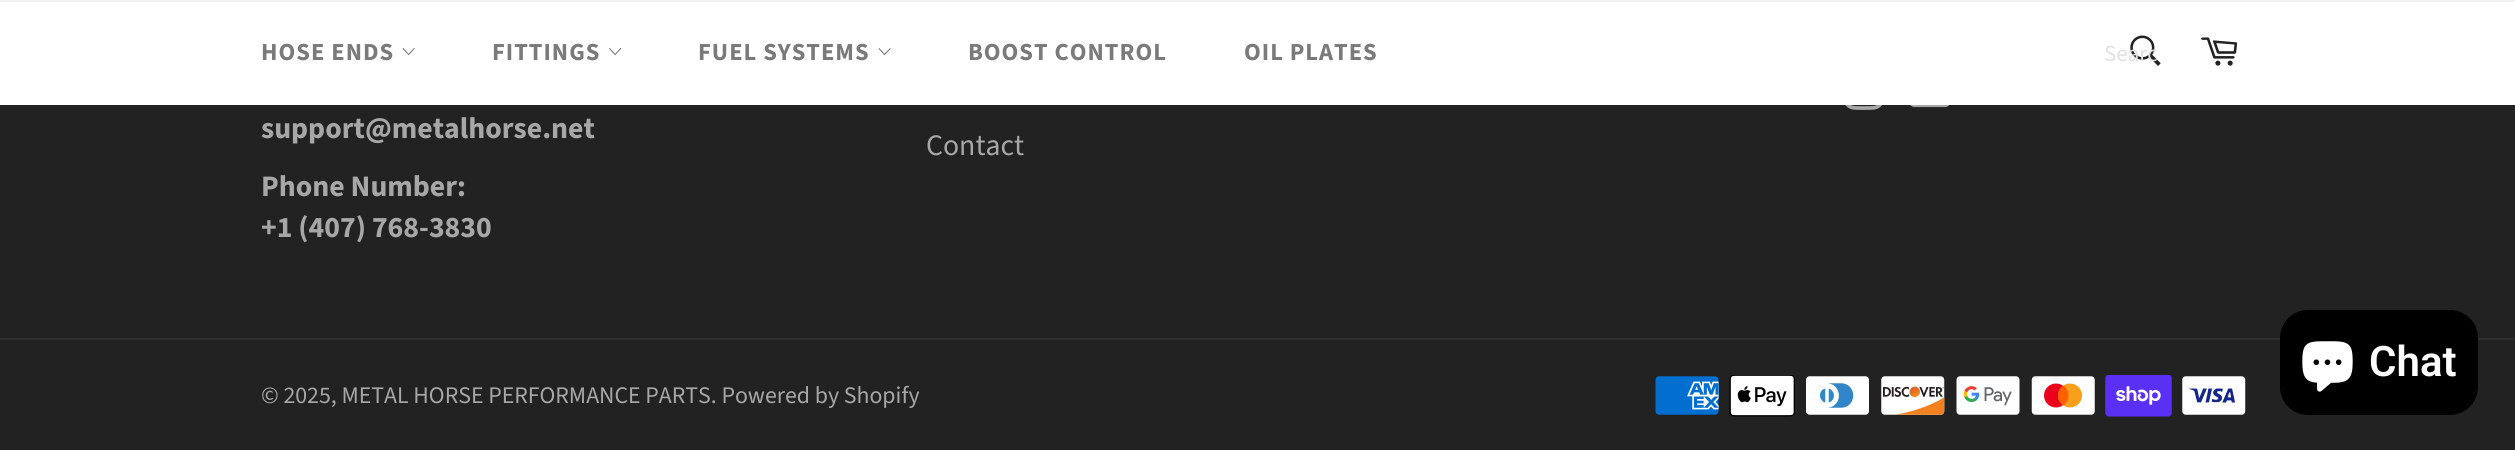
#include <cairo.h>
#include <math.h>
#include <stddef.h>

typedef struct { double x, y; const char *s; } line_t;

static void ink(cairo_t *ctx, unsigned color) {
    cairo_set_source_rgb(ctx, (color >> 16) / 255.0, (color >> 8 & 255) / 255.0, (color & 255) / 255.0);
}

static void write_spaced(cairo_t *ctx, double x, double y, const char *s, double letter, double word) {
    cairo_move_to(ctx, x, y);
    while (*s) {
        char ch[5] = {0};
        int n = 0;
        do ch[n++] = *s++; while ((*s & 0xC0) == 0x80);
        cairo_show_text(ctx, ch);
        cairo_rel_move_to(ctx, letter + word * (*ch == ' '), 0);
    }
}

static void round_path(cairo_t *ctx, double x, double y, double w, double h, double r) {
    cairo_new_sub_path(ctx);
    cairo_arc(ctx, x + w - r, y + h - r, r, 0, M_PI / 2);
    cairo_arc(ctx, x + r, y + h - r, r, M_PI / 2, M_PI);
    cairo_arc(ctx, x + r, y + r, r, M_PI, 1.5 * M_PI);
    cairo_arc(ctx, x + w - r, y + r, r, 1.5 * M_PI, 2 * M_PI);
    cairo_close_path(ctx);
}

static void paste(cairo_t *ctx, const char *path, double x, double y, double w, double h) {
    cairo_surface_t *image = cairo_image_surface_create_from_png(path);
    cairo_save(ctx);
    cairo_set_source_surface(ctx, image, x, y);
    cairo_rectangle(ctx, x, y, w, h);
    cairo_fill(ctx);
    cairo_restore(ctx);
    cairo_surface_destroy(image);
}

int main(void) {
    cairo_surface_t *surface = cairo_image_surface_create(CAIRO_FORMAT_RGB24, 2515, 450);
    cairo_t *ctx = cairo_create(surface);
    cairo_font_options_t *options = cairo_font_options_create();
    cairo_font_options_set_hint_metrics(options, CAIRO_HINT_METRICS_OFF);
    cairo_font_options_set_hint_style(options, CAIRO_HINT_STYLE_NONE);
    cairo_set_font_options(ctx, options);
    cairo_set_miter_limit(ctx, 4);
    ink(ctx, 0x222222);
    cairo_paint(ctx);
    ink(ctx, 0xFFFFFF);
    cairo_rectangle(ctx, 0, 2, 2515, 103);
    cairo_fill(ctx);
    ink(ctx, 0xF2F2F2);
    cairo_rectangle(ctx, 0, 0, 2515, 2);
    cairo_fill(ctx);
    cairo_select_font_face(ctx, "Source Sans Pro", CAIRO_FONT_SLANT_NORMAL, CAIRO_FONT_WEIGHT_BOLD);
    cairo_set_font_size(ctx, 24.5);
    ink(ctx, 0x7A7A7A);
    write_spaced(ctx, 261, 60, "HOSE ENDS", 1, 0);
    paste(ctx, "media/1.png", 402, 48, 13, 8);
    write_spaced(ctx, 492, 60, "FITTINGS", 1, 0);
    paste(ctx, "media/2.png", 609, 48, 13, 8);
    write_spaced(ctx, 698, 60, "FUEL SYSTEMS", 1, 0);
    paste(ctx, "media/1.png", 878, 48, 13, 8);
    write_spaced(ctx, 968, 60, "BOOST CONTROL", 1, 0);
    write_spaced(ctx, 1244, 60, "OIL PLATES", 1, 0);
    paste(ctx, "media/3.png", 2130, 35, 31, 31);
    cairo_select_font_face(ctx, "Source Sans Pro", CAIRO_FONT_SLANT_NORMAL, CAIRO_FONT_WEIGHT_NORMAL);
    cairo_set_font_size(ctx, 23);
    ink(ctx, 0xE1E1E1);
    cairo_move_to(ctx, 2104, 61);
    cairo_show_text(ctx, "Searc");
    paste(ctx, "media/4.png", 2201, 37, 37, 29);
    paste(ctx, "media/5.png", 1845, 105, 37, 5);
    paste(ctx, "media/6.png", 1910, 105, 40, 3);
    cairo_select_font_face(ctx, "Source Sans Pro", CAIRO_FONT_SLANT_NORMAL, CAIRO_FONT_WEIGHT_BOLD);
    cairo_set_font_size(ctx, 29.75);
    ink(ctx, 0xA7A7A7);
    {
        static const line_t items[] = {
            {261, 138, "support@metalhorse.net"},
            {261, 196, "Phone Number:"},
            {261, 237, "+1 (407) 768-3830"},
        };
        for (size_t i = 0; i < sizeof items / sizeof *items; i++) {
            cairo_move_to(ctx, items[i].x, items[i].y);
            cairo_show_text(ctx, items[i].s);
        }
    }
    cairo_select_font_face(ctx, "Source Sans Pro", CAIRO_FONT_SLANT_NORMAL, CAIRO_FONT_WEIGHT_NORMAL);
    cairo_move_to(ctx, 926, 155);
    cairo_show_text(ctx, "Contact");
    ink(ctx, 0x2F2F2F);
    cairo_rectangle(ctx, 0, 338, 2515, 2);
    cairo_fill(ctx);
    cairo_set_font_size(ctx, 23.8);
    ink(ctx, 0xA7A7A7);
    cairo_move_to(ctx, 261, 403);
    cairo_show_text(ctx, "© 2025, METAL HORSE PERFORMANCE PARTS. Powered by Shopify");
    paste(ctx, "media/7.png", 1655, 376, 64, 39);
    paste(ctx, "media/8.png", 1729, 375, 66, 42);
    paste(ctx, "media/9.png", 1806, 376, 63, 39);
    paste(ctx, "media/10.png", 1881, 376, 64, 39);
    paste(ctx, "media/11.png", 1956, 376, 64, 39);
    paste(ctx, "media/12.png", 2031, 376, 64, 39);
    paste(ctx, "media/13.png", 2105, 375, 67, 42);
    paste(ctx, "media/14.png", 2182, 376, 64, 39);
    ink(ctx, 0x000000);
    round_path(ctx, 2280, 310, 198, 105, 28);
    cairo_fill(ctx);
    paste(ctx, "media/15.png", 2302, 341, 51, 51);
    cairo_select_font_face(ctx, "Roboto SemiBold", CAIRO_FONT_SLANT_NORMAL, CAIRO_FONT_WEIGHT_NORMAL);
    cairo_set_font_size(ctx, 42);
    ink(ctx, 0xFFFFFF);
    cairo_move_to(ctx, 2369, 376);
    cairo_show_text(ctx, "Chat");
    cairo_surface_write_to_png(surface, "image.png");
    cairo_font_options_destroy(options);
    cairo_destroy(ctx);
    cairo_surface_destroy(surface);
    return 0;
}
